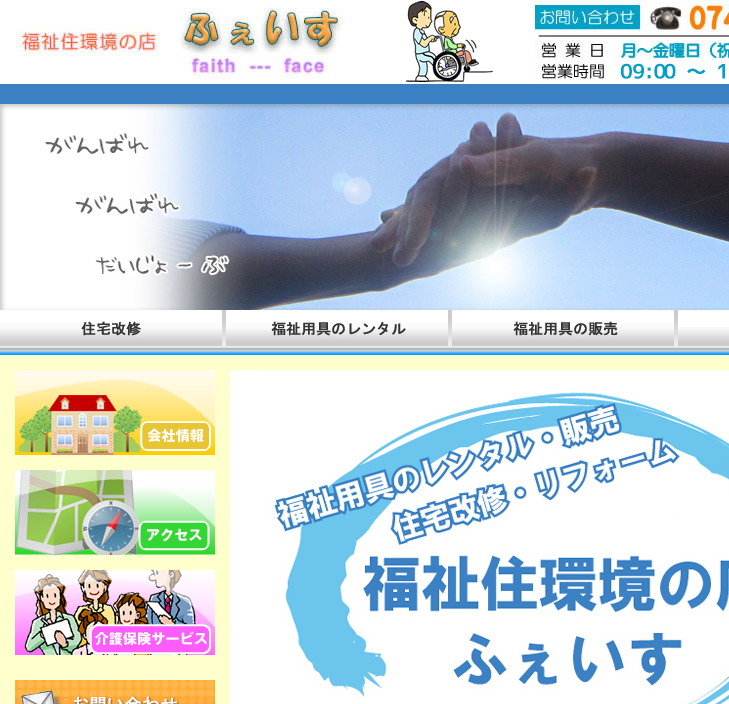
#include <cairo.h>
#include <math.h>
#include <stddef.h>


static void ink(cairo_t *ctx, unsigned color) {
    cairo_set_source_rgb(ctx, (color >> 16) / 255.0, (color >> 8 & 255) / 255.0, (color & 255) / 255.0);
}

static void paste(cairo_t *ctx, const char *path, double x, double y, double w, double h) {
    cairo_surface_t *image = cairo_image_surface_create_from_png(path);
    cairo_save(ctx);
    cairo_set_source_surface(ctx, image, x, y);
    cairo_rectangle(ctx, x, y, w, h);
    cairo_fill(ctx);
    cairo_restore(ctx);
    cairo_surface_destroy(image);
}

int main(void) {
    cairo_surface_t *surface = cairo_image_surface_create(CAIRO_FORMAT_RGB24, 729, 704);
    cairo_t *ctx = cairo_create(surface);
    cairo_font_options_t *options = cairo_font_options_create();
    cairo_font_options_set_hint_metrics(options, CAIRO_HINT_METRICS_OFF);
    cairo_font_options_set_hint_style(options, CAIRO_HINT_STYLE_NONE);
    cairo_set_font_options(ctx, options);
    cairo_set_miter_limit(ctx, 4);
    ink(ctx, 0xFFFFFF);
    cairo_paint(ctx);
    paste(ctx, "media/1.png", 16, 0, 713, 84);
    ink(ctx, 0x3B80C3);
    cairo_rectangle(ctx, 0, 84, 729, 20);
    cairo_fill(ctx);
    paste(ctx, "media/2.png", 0, 104, 729, 206);
    paste(ctx, "media/3.png", 0, 321, 222, 34);
    paste(ctx, "media/4.png", 222, 310, 4, 45);
    paste(ctx, "media/5.png", 226, 321, 222, 34);
    paste(ctx, "media/4.png", 448, 310, 4, 45);
    paste(ctx, "media/6.png", 452, 321, 222, 34);
    paste(ctx, "media/4.png", 674, 310, 4, 45);
    paste(ctx, "media/7.png", 678, 327, 51, 28);
    ink(ctx, 0xFFFFCE);
    cairo_rectangle(ctx, 0, 355, 729, 349);
    cairo_fill(ctx);
    paste(ctx, "media/8.png", 15, 370, 200, 285);
    paste(ctx, "media/9.png", 15, 680, 200, 24);
    paste(ctx, "media/10.png", 230, 370, 499, 334);
    cairo_surface_write_to_png(surface, "image.png");
    cairo_font_options_destroy(options);
    cairo_destroy(ctx);
    cairo_surface_destroy(surface);
    return 0;
}
